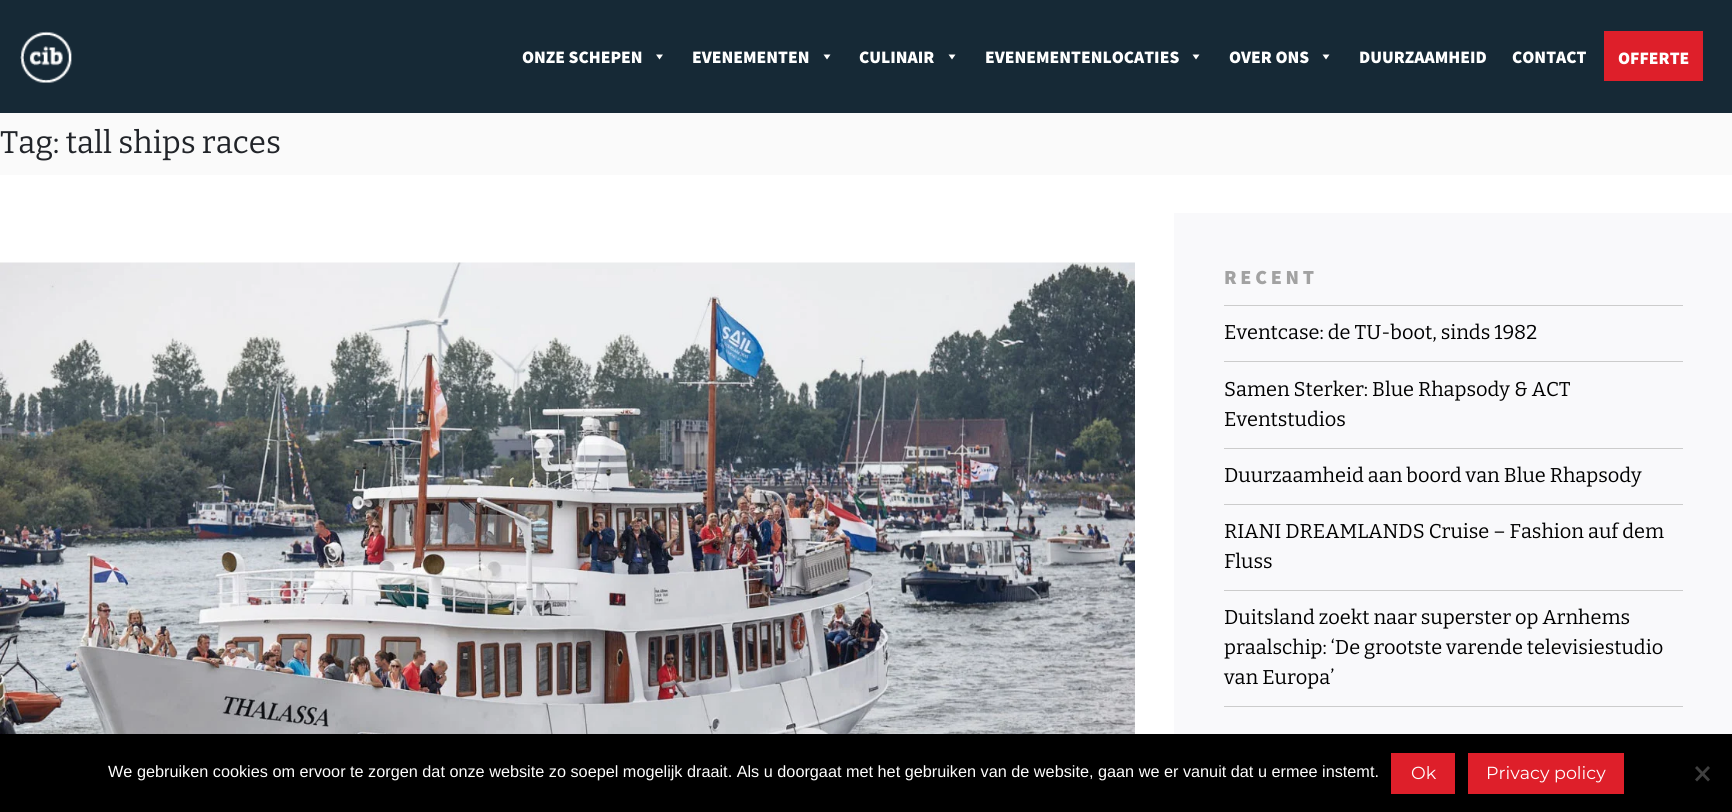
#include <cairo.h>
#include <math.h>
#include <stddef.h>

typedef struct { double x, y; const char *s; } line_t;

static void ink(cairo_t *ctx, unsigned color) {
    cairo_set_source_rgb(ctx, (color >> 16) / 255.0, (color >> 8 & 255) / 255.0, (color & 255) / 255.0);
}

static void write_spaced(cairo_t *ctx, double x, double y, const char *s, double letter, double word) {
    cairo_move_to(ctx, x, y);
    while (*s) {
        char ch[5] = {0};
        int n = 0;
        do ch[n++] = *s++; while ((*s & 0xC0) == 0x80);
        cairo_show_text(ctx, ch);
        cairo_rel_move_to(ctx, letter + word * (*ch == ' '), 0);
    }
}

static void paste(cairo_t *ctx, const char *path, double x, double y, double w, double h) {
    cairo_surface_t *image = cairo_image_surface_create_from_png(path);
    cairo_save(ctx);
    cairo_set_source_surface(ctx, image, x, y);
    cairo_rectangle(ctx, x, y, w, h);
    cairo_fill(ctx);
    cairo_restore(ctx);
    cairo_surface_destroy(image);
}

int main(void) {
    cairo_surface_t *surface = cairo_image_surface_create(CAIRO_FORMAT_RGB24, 1732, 812);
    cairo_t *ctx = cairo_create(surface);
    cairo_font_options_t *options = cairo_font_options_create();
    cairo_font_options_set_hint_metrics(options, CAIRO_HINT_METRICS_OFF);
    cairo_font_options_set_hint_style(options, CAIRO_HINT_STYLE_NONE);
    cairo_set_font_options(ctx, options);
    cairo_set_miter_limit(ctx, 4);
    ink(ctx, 0xFFFFFF);
    cairo_paint(ctx);
    ink(ctx, 0x162936);
    cairo_rectangle(ctx, 0, 0, 1732, 113);
    cairo_fill(ctx);
    paste(ctx, "media/1.png", 20, 31, 52, 52);
    cairo_select_font_face(ctx, "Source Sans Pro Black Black", CAIRO_FONT_SLANT_NORMAL, CAIRO_FONT_WEIGHT_NORMAL);
    cairo_set_font_size(ctx, 17.5);
    ink(ctx, 0xFFFFFF);
    cairo_move_to(ctx, 522, 63);
    cairo_show_text(ctx, "ONZE SCHEPEN");
    cairo_new_path(ctx);
    cairo_move_to(ctx, 663, 54.5);
    cairo_line_to(ctx, 659.5, 59.5);
    cairo_line_to(ctx, 656, 54.5);
    cairo_close_path(ctx);
    cairo_fill(ctx);
    cairo_move_to(ctx, 692, 63);
    cairo_show_text(ctx, "EVENEMENTEN");
    cairo_new_path(ctx);
    cairo_move_to(ctx, 830.5, 54.5);
    cairo_line_to(ctx, 827, 59.5);
    cairo_line_to(ctx, 823.5, 54.5);
    cairo_close_path(ctx);
    cairo_fill(ctx);
    cairo_move_to(ctx, 859, 63);
    cairo_show_text(ctx, "CULINAIR");
    cairo_new_path(ctx);
    cairo_move_to(ctx, 955.5, 54.5);
    cairo_line_to(ctx, 952, 59.5);
    cairo_line_to(ctx, 948.5, 54.5);
    cairo_close_path(ctx);
    cairo_fill(ctx);
    cairo_move_to(ctx, 985, 63);
    cairo_show_text(ctx, "EVENEMENTENLOCATIES");
    cairo_new_path(ctx);
    cairo_move_to(ctx, 1199.5, 54.5);
    cairo_line_to(ctx, 1196, 59.5);
    cairo_line_to(ctx, 1192.5, 54.5);
    cairo_close_path(ctx);
    cairo_fill(ctx);
    cairo_move_to(ctx, 1229, 63);
    cairo_show_text(ctx, "OVER ONS");
    cairo_new_path(ctx);
    cairo_move_to(ctx, 1329.5, 54.5);
    cairo_line_to(ctx, 1326, 59.5);
    cairo_line_to(ctx, 1322.5, 54.5);
    cairo_close_path(ctx);
    cairo_fill(ctx);
    cairo_move_to(ctx, 1359, 63);
    cairo_show_text(ctx, "DUURZAAMHEID");
    cairo_move_to(ctx, 1512, 63);
    cairo_show_text(ctx, "CONTACT");
    ink(ctx, 0xDE1F2A);
    cairo_rectangle(ctx, 1604, 31, 99, 50);
    cairo_fill(ctx);
    ink(ctx, 0xFFFFFF);
    cairo_move_to(ctx, 1618, 64);
    cairo_show_text(ctx, "OFFERTE");
    ink(ctx, 0xFAFAFA);
    cairo_rectangle(ctx, 0, 113, 1732, 62);
    cairo_fill(ctx);
    cairo_select_font_face(ctx, "Bitter", CAIRO_FONT_SLANT_NORMAL, CAIRO_FONT_WEIGHT_NORMAL);
    cairo_set_font_size(ctx, 31.25);
    ink(ctx, 0x212429);
    cairo_move_to(ctx, 0, 153);
    cairo_show_text(ctx, "Tag: tall ships races");
    paste(ctx, "media/2.png", 0, 262, 1135, 472);
    ink(ctx, 0xF9F9FB);
    cairo_rectangle(ctx, 1174, 213, 558, 521);
    cairo_fill(ctx);
    ink(ctx, 0xCCCCCC);
    cairo_rectangle(ctx, 1224, 305, 459, 1);
    cairo_fill(ctx);
    cairo_select_font_face(ctx, "Source Sans Pro Black Black", CAIRO_FONT_SLANT_NORMAL, CAIRO_FONT_WEIGHT_NORMAL);
    cairo_set_font_size(ctx, 20);
    ink(ctx, 0xA2A2A2);
    write_spaced(ctx, 1224, 284, "RECENT", 3.75, 0);
    ink(ctx, 0xCCCCCC);
    cairo_rectangle(ctx, 1224, 361, 459, 1);
    cairo_fill(ctx);
    cairo_select_font_face(ctx, "Bitter", CAIRO_FONT_SLANT_NORMAL, CAIRO_FONT_WEIGHT_NORMAL);
    ink(ctx, 0x000000);
    cairo_move_to(ctx, 1224, 339);
    cairo_show_text(ctx, "Eventcase: de TU-boot, sinds 1982");
    ink(ctx, 0xCCCCCC);
    cairo_rectangle(ctx, 1224, 448, 459, 1);
    cairo_fill(ctx);
    ink(ctx, 0x000000);
    cairo_move_to(ctx, 1224, 396);
    cairo_show_text(ctx, "Samen Sterker: Blue Rhapsody & ACT");
    cairo_move_to(ctx, 1224, 426);
    cairo_show_text(ctx, "Eventstudios");
    ink(ctx, 0xCCCCCC);
    cairo_rectangle(ctx, 1224, 504, 459, 1);
    cairo_fill(ctx);
    ink(ctx, 0x000000);
    cairo_move_to(ctx, 1224, 482);
    cairo_show_text(ctx, "Duurzaamheid aan boord van Blue Rhapsody");
    ink(ctx, 0xCCCCCC);
    cairo_rectangle(ctx, 1224, 590, 459, 1);
    cairo_fill(ctx);
    ink(ctx, 0x000000);
    cairo_move_to(ctx, 1224, 538);
    cairo_show_text(ctx, "RIANI DREAMLANDS Cruise – Fashion auf dem");
    cairo_move_to(ctx, 1224, 568);
    cairo_show_text(ctx, "Fluss");
    ink(ctx, 0xCCCCCC);
    cairo_rectangle(ctx, 1224, 706, 459, 1);
    cairo_fill(ctx);
    ink(ctx, 0x000000);
    {
        static const line_t items[] = {
            {1224, 624, "Duitsland zoekt naar superster op Arnhems"},
            {1224, 654, "praalschip: ‘De grootste varende televisiestudio"},
            {1224, 684, "van Europa’"},
        };
        for (size_t i = 0; i < sizeof items / sizeof *items; i++) {
            cairo_move_to(ctx, items[i].x, items[i].y);
            cairo_show_text(ctx, items[i].s);
        }
    }
    cairo_rectangle(ctx, 0, 734, 1732, 78);
    cairo_fill(ctx);
    cairo_select_font_face(ctx, "Liberation Sans", CAIRO_FONT_SLANT_NORMAL, CAIRO_FONT_WEIGHT_NORMAL);
    cairo_set_font_size(ctx, 16.25);
    ink(ctx, 0xFFFFFF);
    cairo_move_to(ctx, 108, 777);
    cairo_show_text(ctx, "We gebruiken cookies om ervoor te zorgen dat onze website zo soepel mogelijk draait. Als u doorgaat met het gebruiken van de website, gaan we er vanuit dat u ermee instemt.");
    ink(ctx, 0xDE1F2A);
    cairo_rectangle(ctx, 1391, 753, 64, 41);
    cairo_fill(ctx);
    cairo_select_font_face(ctx, "Montserrat", CAIRO_FONT_SLANT_NORMAL, CAIRO_FONT_WEIGHT_NORMAL);
    cairo_set_font_size(ctx, 17.5);
    ink(ctx, 0xFFFFFF);
    cairo_move_to(ctx, 1411, 779);
    cairo_show_text(ctx, "Ok");
    ink(ctx, 0xDE1F2A);
    cairo_rectangle(ctx, 1468, 753, 156, 41);
    cairo_fill(ctx);
    ink(ctx, 0xFFFFFF);
    cairo_move_to(ctx, 1486, 779);
    cairo_show_text(ctx, "Privacy policy");
    ink(ctx, 0x404040);
    cairo_new_path(ctx);
    cairo_move_to(ctx, 1708, 766);
    cairo_line_to(ctx, 1710, 768);
    cairo_line_to(ctx, 1697, 781.5);
    cairo_line_to(ctx, 1695, 779.5);
    cairo_close_path(ctx);
    cairo_fill(ctx);
    cairo_new_path(ctx);
    cairo_move_to(ctx, 1695, 768);
    cairo_line_to(ctx, 1697, 766);
    cairo_line_to(ctx, 1710, 779.5);
    cairo_line_to(ctx, 1708, 781.5);
    cairo_close_path(ctx);
    cairo_fill(ctx);
    cairo_surface_write_to_png(surface, "image.png");
    cairo_font_options_destroy(options);
    cairo_destroy(ctx);
    cairo_surface_destroy(surface);
    return 0;
}
